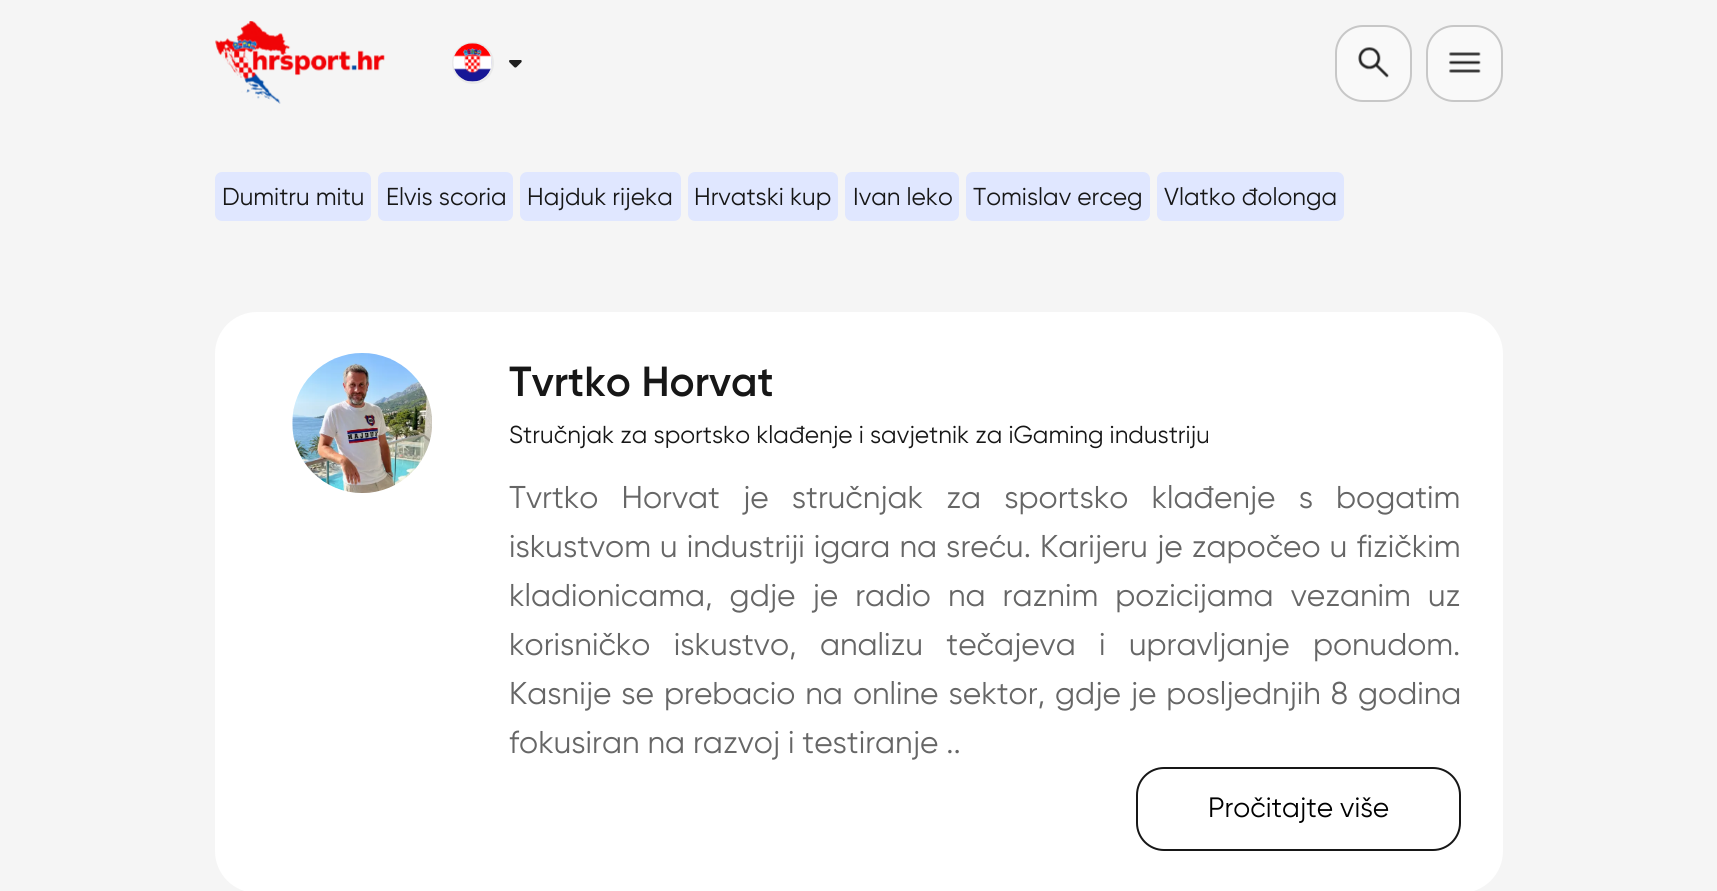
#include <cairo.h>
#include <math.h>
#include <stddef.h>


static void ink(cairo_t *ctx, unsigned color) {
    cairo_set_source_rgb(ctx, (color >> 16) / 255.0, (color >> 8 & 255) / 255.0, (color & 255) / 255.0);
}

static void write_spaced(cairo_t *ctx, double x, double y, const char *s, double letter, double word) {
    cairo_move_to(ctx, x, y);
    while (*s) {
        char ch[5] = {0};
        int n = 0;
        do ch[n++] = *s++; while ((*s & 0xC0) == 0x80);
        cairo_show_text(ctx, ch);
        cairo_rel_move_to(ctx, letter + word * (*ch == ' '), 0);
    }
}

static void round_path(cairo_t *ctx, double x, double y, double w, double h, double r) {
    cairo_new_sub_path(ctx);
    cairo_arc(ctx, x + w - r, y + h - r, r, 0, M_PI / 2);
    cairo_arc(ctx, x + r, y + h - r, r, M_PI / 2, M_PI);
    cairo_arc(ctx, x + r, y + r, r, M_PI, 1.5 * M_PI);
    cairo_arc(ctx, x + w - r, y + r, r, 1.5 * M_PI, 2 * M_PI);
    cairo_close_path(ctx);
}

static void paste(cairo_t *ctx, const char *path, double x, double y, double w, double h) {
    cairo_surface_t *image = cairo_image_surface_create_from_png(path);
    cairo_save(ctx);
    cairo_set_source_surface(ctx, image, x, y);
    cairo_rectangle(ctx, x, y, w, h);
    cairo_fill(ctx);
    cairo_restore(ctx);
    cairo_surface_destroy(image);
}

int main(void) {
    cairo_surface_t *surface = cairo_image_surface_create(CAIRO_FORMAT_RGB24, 1717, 891);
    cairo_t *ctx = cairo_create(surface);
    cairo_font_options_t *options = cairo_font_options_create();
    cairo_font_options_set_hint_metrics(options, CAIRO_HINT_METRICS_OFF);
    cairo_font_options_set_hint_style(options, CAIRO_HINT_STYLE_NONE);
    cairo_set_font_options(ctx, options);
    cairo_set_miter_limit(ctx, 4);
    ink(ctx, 0xF5F5F5);
    cairo_paint(ctx);
    paste(ctx, "media/1.png", 215, 21, 170, 83);
    cairo_arc(ctx, 473, 63, 20, 0, 2 * M_PI);
    ink(ctx, 0xE9E9E9);
    cairo_stroke(ctx);
    paste(ctx, "media/2.png", 453, 43, 39, 39);
    paste(ctx, "media/3.png", 509, 60, 13, 8);
    ink(ctx, 0xF9F9F9);
    round_path(ctx, 1336, 26, 75, 75, 27);
    cairo_fill_preserve(ctx);
    ink(ctx, 0xC7C7C7);
    cairo_stroke(ctx);
    paste(ctx, "media/4.png", 1358, 47, 31, 31);
    ink(ctx, 0xF9F9F9);
    round_path(ctx, 1427, 26, 75, 75, 27);
    cairo_fill_preserve(ctx);
    ink(ctx, 0xC7C7C7);
    cairo_stroke(ctx);
    paste(ctx, "media/5.png", 1449, 52, 32, 21);
    ink(ctx, 0xE0E7FF);
    round_path(ctx, 215, 172, 156, 49, 7);
    cairo_fill(ctx);
    cairo_select_font_face(ctx, "Gilroy", CAIRO_FONT_SLANT_NORMAL, CAIRO_FONT_WEIGHT_NORMAL);
    cairo_set_font_size(ctx, 24.5);
    ink(ctx, 0x171717);
    cairo_move_to(ctx, 222, 205);
    cairo_show_text(ctx, "Dumitru mitu");
    ink(ctx, 0xE0E7FF);
    round_path(ctx, 378, 172, 135, 49, 7);
    cairo_fill(ctx);
    ink(ctx, 0x171717);
    cairo_move_to(ctx, 386, 205);
    cairo_show_text(ctx, "Elvis scoria");
    ink(ctx, 0xE0E7FF);
    round_path(ctx, 520, 172, 161, 49, 7);
    cairo_fill(ctx);
    ink(ctx, 0x171717);
    cairo_move_to(ctx, 527, 205);
    cairo_show_text(ctx, "Hajduk rijeka");
    ink(ctx, 0xE0E7FF);
    round_path(ctx, 688, 172, 150, 49, 7);
    cairo_fill(ctx);
    ink(ctx, 0x171717);
    cairo_move_to(ctx, 694, 205);
    cairo_show_text(ctx, "Hrvatski kup");
    ink(ctx, 0xE0E7FF);
    round_path(ctx, 845, 172, 114, 49, 7);
    cairo_fill(ctx);
    ink(ctx, 0x171717);
    cairo_move_to(ctx, 853, 205);
    cairo_show_text(ctx, "Ivan leko");
    ink(ctx, 0xE0E7FF);
    round_path(ctx, 966, 172, 184, 49, 7);
    cairo_fill(ctx);
    ink(ctx, 0x171717);
    cairo_move_to(ctx, 973, 205);
    cairo_show_text(ctx, "Tomislav erceg");
    ink(ctx, 0xE0E7FF);
    round_path(ctx, 1157, 172, 187, 49, 7);
    cairo_fill(ctx);
    ink(ctx, 0x171717);
    cairo_move_to(ctx, 1164, 205);
    cairo_show_text(ctx, "Vlatko đolonga");
    ink(ctx, 0xFFFFFF);
    round_path(ctx, 215, 312, 1288, 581, 42);
    cairo_fill(ctx);
    paste(ctx, "media/6.png", 292, 353, 140, 140);
    cairo_select_font_face(ctx, "Gilroy SemiBold", CAIRO_FONT_SLANT_NORMAL, CAIRO_FONT_WEIGHT_NORMAL);
    cairo_set_font_size(ctx, 42);
    ink(ctx, 0x171717);
    cairo_move_to(ctx, 509, 396);
    cairo_show_text(ctx, "Tvrtko Horvat");
    cairo_select_font_face(ctx, "Gilroy", CAIRO_FONT_SLANT_NORMAL, CAIRO_FONT_WEIGHT_NORMAL);
    cairo_set_font_size(ctx, 24.5);
    cairo_move_to(ctx, 509, 443);
    cairo_show_text(ctx, "Stručnjak za sportsko klađenje i savjetnik za iGaming industriju");
    cairo_set_font_size(ctx, 31.5);
    ink(ctx, 0x666666);
    write_spaced(ctx, 509, 508, "Tvrtko Horvat je stručnjak za sportsko klađenje s bogatim", 0, 15.25);
    write_spaced(ctx, 509, 557, "iskustvom u industriji igara na sreću. Karijeru je započeo u fizičkim", 0, 1.25);
    write_spaced(ctx, 509, 606, "kladionicama, gdje je radio na raznim pozicijama vezanim uz", 0, 9.25);
    write_spaced(ctx, 509, 655, "korisničko iskustvo, analizu tečajeva i upravljanje ponudom.", 0, 15.5);
    write_spaced(ctx, 509, 704, "Kasnije se prebacio na online sektor, gdje je posljednjih 8 godina", 0, 2.1);
    cairo_move_to(ctx, 509, 753);
    cairo_show_text(ctx, "fokusiran na razvoj i testiranje ..");
    round_path(ctx, 1137, 768, 323, 82, 27);
    ink(ctx, 0x171717);
    cairo_stroke(ctx);
    cairo_set_font_size(ctx, 28);
    ink(ctx, 0x000000);
    cairo_move_to(ctx, 1208, 817);
    cairo_show_text(ctx, "Pročitajte više");
    cairo_surface_write_to_png(surface, "image.png");
    cairo_font_options_destroy(options);
    cairo_destroy(ctx);
    cairo_surface_destroy(surface);
    return 0;
}
